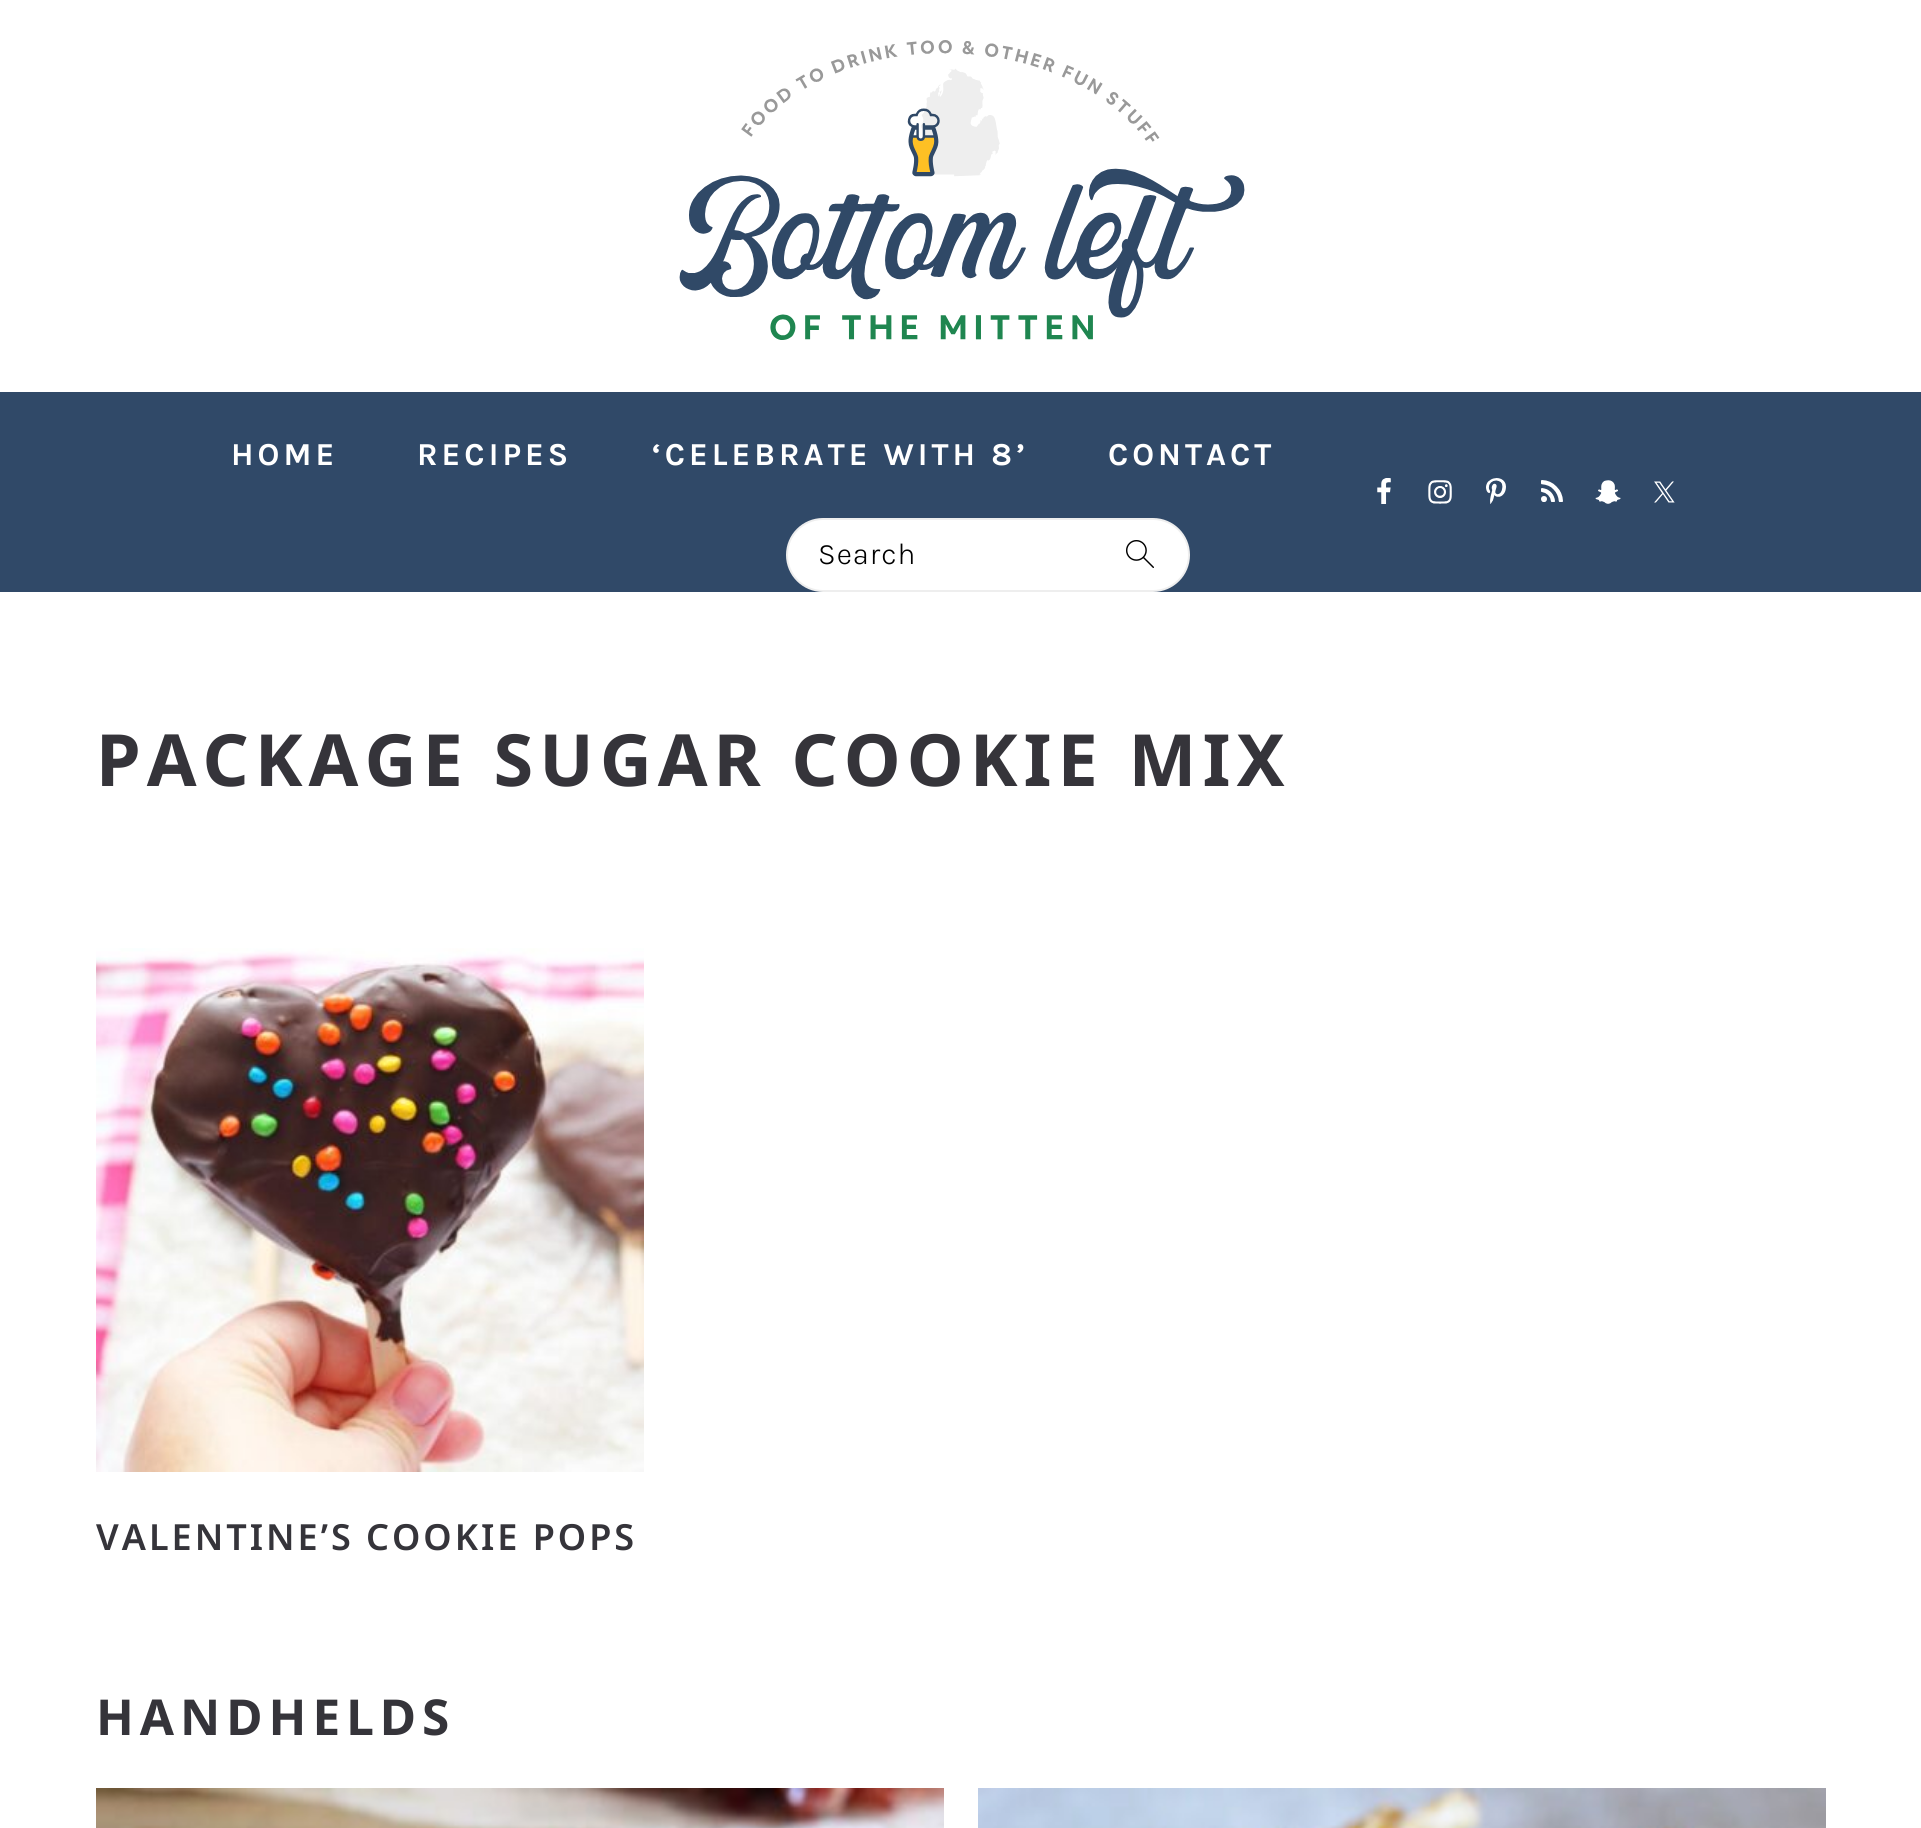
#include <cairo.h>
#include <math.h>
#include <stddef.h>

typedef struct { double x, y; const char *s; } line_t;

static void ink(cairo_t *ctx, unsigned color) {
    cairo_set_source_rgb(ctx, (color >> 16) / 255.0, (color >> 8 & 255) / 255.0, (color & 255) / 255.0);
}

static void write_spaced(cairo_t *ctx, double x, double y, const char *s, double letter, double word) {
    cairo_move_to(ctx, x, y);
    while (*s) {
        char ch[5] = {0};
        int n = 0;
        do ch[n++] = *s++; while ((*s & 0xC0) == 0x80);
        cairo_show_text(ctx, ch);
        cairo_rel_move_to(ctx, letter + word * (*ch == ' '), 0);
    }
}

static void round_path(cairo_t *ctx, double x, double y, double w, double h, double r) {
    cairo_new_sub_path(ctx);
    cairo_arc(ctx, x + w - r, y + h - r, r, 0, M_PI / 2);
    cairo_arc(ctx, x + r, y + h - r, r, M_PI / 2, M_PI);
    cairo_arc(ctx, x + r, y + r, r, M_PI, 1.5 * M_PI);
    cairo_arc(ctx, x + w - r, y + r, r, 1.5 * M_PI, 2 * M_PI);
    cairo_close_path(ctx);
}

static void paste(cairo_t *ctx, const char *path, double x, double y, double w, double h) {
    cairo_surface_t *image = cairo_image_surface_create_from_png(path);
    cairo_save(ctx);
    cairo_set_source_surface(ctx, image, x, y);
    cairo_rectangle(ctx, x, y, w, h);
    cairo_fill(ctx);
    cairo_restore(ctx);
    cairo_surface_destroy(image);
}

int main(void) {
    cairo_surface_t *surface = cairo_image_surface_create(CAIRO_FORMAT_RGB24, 1921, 1828);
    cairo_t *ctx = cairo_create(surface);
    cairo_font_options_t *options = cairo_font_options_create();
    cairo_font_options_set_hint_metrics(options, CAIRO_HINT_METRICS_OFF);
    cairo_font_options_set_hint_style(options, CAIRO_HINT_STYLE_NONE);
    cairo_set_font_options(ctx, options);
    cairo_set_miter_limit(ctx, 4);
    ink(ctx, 0xFFFFFF);
    cairo_paint(ctx);
    paste(ctx, "media/1.png", 679, 40, 566, 300);
    ink(ctx, 0x304968);
    cairo_rectangle(ctx, 0, 392, 1921, 200);
    cairo_fill(ctx);
    cairo_select_font_face(ctx, "Karla", CAIRO_FONT_SLANT_NORMAL, CAIRO_FONT_WEIGHT_BOLD);
    cairo_set_font_size(ctx, 32);
    ink(ctx, 0xFFFFFF);
    {
        static const line_t items[] = {
            {231, 465, "HOME"},
            {417, 465, "RECIPES"},
            {652, 465, "‘CELEBRATE WITH 8’"},
            {1108, 465, "CONTACT"},
        };
        for (size_t i = 0; i < sizeof items / sizeof *items; i++) {
            write_spaced(ctx, items[i].x, items[i].y, items[i].s, 4, 0);
        }
    }
    paste(ctx, "media/2.png", 1377, 478, 14, 26);
    paste(ctx, "media/3.png", 1428, 480, 24, 24);
    paste(ctx, "media/4.png", 1486, 478, 20, 26);
    paste(ctx, "media/5.png", 1541, 480, 22, 22);
    paste(ctx, "media/6.png", 1595, 480, 26, 24);
    paste(ctx, "media/7.png", 1654, 481, 21, 22);
    round_path(ctx, 787, 519, 402, 72, 36);
    cairo_fill_preserve(ctx);
    ink(ctx, 0xEEEEEE);
    cairo_stroke(ctx);
    paste(ctx, "media/8.png", 1126, 540, 28, 28);
    cairo_select_font_face(ctx, "Karla Light", CAIRO_FONT_SLANT_NORMAL, CAIRO_FONT_WEIGHT_NORMAL);
    cairo_set_font_size(ctx, 30);
    ink(ctx, 0x000000);
    write_spaced(ctx, 818, 564, "Search", 1, 0);
    cairo_select_font_face(ctx, "Noto Sans", CAIRO_FONT_SLANT_NORMAL, CAIRO_FONT_WEIGHT_BOLD);
    cairo_set_font_size(ctx, 72);
    ink(ctx, 0x35343A);
    write_spaced(ctx, 96, 786, "PACKAGE SUGAR COOKIE MIX", 6, 0);
    paste(ctx, "media/9.png", 96, 948, 548, 524);
    cairo_select_font_face(ctx, "Noto Sans SemiBold", CAIRO_FONT_SLANT_NORMAL, CAIRO_FONT_WEIGHT_NORMAL);
    cairo_set_font_size(ctx, 36);
    write_spaced(ctx, 96, 1550, "VALENTINE’S COOKIE POPS", 3, 0);
    cairo_select_font_face(ctx, "Noto Sans", CAIRO_FONT_SLANT_NORMAL, CAIRO_FONT_WEIGHT_BOLD);
    cairo_set_font_size(ctx, 49.5);
    write_spaced(ctx, 96, 1735, "HANDHELDS", 6, 0);
    paste(ctx, "media/10.png", 96, 1788, 848, 40);
    paste(ctx, "media/11.png", 978, 1788, 848, 40);
    cairo_surface_write_to_png(surface, "image.png");
    cairo_font_options_destroy(options);
    cairo_destroy(ctx);
    cairo_surface_destroy(surface);
    return 0;
}
